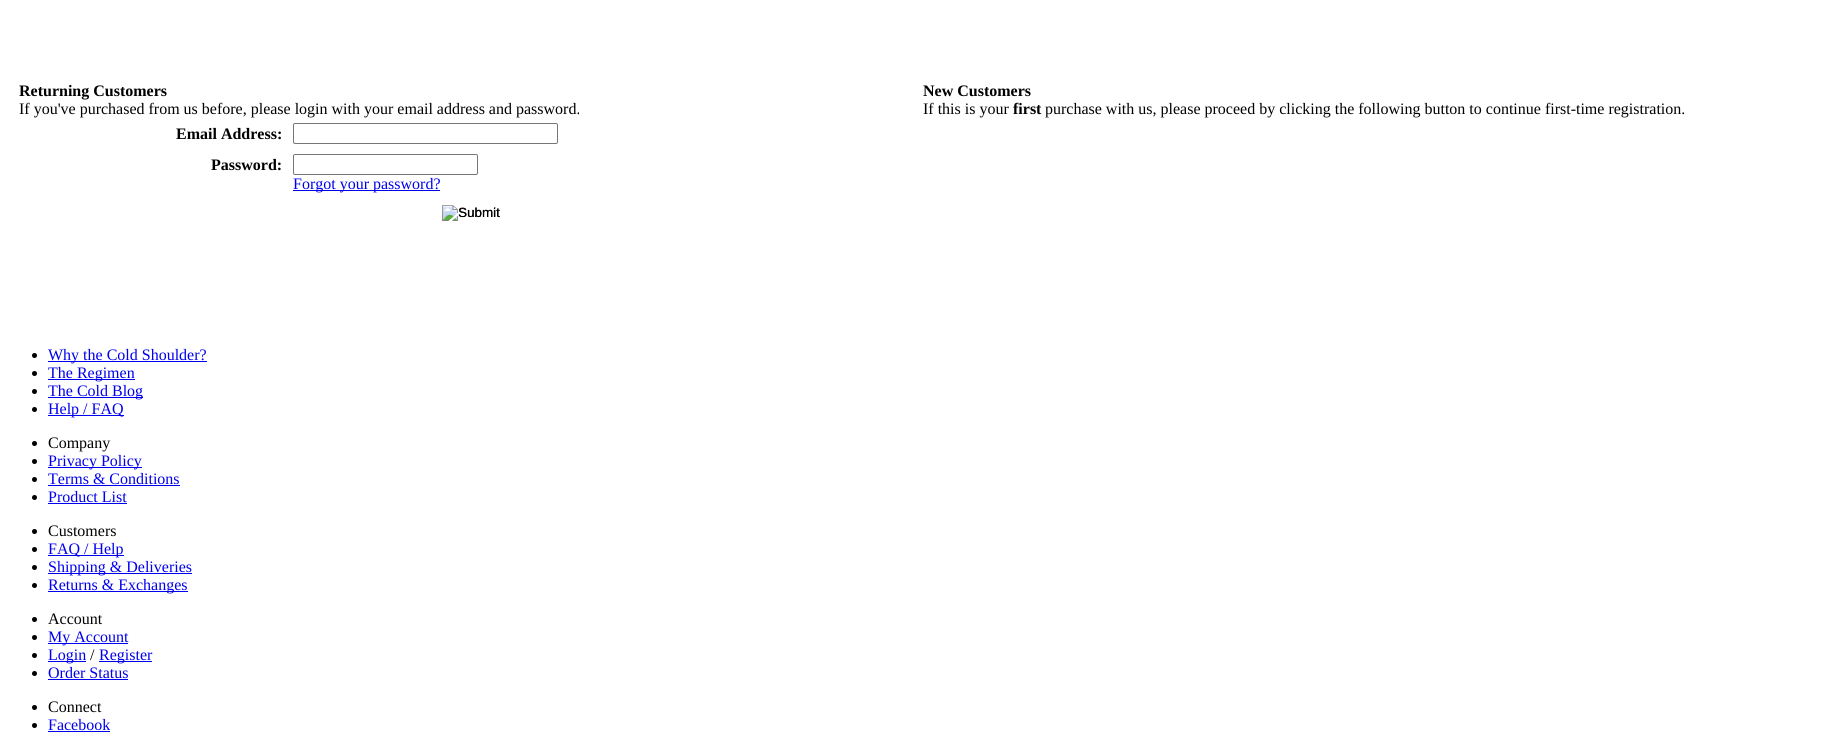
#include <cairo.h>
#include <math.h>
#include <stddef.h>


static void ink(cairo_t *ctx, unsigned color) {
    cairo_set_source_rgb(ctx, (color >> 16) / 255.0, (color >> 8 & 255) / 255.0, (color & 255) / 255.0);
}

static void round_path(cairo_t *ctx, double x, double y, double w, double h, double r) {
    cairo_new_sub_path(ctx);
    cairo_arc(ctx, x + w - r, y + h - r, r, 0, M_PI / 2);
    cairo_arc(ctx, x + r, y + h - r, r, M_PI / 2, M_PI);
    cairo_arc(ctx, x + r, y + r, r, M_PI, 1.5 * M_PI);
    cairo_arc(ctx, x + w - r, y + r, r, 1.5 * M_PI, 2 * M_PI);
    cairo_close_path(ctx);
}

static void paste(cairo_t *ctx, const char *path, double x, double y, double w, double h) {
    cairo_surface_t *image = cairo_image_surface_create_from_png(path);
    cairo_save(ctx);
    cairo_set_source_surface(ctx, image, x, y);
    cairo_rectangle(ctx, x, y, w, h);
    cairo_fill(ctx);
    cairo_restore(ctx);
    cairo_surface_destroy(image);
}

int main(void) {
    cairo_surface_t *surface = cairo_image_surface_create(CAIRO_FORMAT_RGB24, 1846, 734);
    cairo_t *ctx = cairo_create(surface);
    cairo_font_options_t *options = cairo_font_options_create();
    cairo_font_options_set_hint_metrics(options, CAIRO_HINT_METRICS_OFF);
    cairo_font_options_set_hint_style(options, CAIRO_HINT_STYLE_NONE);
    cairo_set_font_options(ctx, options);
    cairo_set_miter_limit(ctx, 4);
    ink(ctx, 0xFFFFFF);
    cairo_paint(ctx);
    cairo_select_font_face(ctx, "Liberation Serif", CAIRO_FONT_SLANT_NORMAL, CAIRO_FONT_WEIGHT_BOLD);
    cairo_set_font_size(ctx, 16);
    ink(ctx, 0x000000);
    cairo_move_to(ctx, 19, 96);
    cairo_show_text(ctx, "Returning Customers");
    cairo_select_font_face(ctx, "Liberation Serif", CAIRO_FONT_SLANT_NORMAL, CAIRO_FONT_WEIGHT_NORMAL);
    cairo_move_to(ctx, 19, 114);
    cairo_show_text(ctx, "If you've purchased from us before, please login with your email address and password.");
    cairo_select_font_face(ctx, "Liberation Serif", CAIRO_FONT_SLANT_NORMAL, CAIRO_FONT_WEIGHT_BOLD);
    cairo_move_to(ctx, 176, 139);
    cairo_show_text(ctx, "Email Address:");
    round_path(ctx, 293.5, 123.5, 264, 20, 1.5);
    ink(ctx, 0x767676);
    cairo_set_line_width(ctx, 1);
    cairo_stroke(ctx);
    ink(ctx, 0x000000);
    cairo_move_to(ctx, 211, 170);
    cairo_show_text(ctx, "Password:");
    round_path(ctx, 293.5, 154.5, 184, 20, 1.5);
    ink(ctx, 0x767676);
    cairo_stroke(ctx);
    ink(ctx, 0x0000EE);
    cairo_rectangle(ctx, 293, 190, 147, 1);
    cairo_fill(ctx);
    cairo_select_font_face(ctx, "Liberation Serif", CAIRO_FONT_SLANT_NORMAL, CAIRO_FONT_WEIGHT_NORMAL);
    cairo_move_to(ctx, 293, 189);
    cairo_show_text(ctx, "Forgot your password?");
    paste(ctx, "media/1.png", 442, 205, 58, 16);
    cairo_select_font_face(ctx, "Liberation Sans", CAIRO_FONT_SLANT_NORMAL, CAIRO_FONT_WEIGHT_NORMAL);
    cairo_set_font_size(ctx, 13.5);
    ink(ctx, 0x000000);
    cairo_move_to(ctx, 458, 217);
    cairo_show_text(ctx, "Submit");
    cairo_select_font_face(ctx, "Liberation Serif", CAIRO_FONT_SLANT_NORMAL, CAIRO_FONT_WEIGHT_BOLD);
    cairo_set_font_size(ctx, 16);
    cairo_move_to(ctx, 923, 96);
    cairo_show_text(ctx, "New Customers");
    cairo_select_font_face(ctx, "Liberation Serif", CAIRO_FONT_SLANT_NORMAL, CAIRO_FONT_WEIGHT_NORMAL);
    cairo_move_to(ctx, 923, 114);
    cairo_show_text(ctx, "If this is your");
    cairo_select_font_face(ctx, "Liberation Serif", CAIRO_FONT_SLANT_NORMAL, CAIRO_FONT_WEIGHT_BOLD);
    cairo_move_to(ctx, 1013, 114);
    cairo_show_text(ctx, "first");
    cairo_select_font_face(ctx, "Liberation Serif", CAIRO_FONT_SLANT_NORMAL, CAIRO_FONT_WEIGHT_NORMAL);
    cairo_move_to(ctx, 1045, 114);
    cairo_show_text(ctx, "purchase with us, please proceed by clicking the following button to continue first-time registration.");
    cairo_new_path(ctx);
    cairo_arc(ctx, 34.5, 355.5, 2.5, 0, 2 * M_PI);
    cairo_fill(ctx);
    ink(ctx, 0x0000EE);
    cairo_rectangle(ctx, 48, 361, 159, 1);
    cairo_fill(ctx);
    cairo_move_to(ctx, 48, 360);
    cairo_show_text(ctx, "Why the Cold Shoulder?");
    ink(ctx, 0x000000);
    cairo_new_path(ctx);
    cairo_arc(ctx, 34.5, 373.5, 2.5, 0, 2 * M_PI);
    cairo_fill(ctx);
    ink(ctx, 0x0000EE);
    cairo_rectangle(ctx, 48, 379, 87, 1);
    cairo_fill(ctx);
    cairo_move_to(ctx, 48, 378);
    cairo_show_text(ctx, "The Regimen");
    ink(ctx, 0x000000);
    cairo_new_path(ctx);
    cairo_arc(ctx, 34.5, 391.5, 2.5, 0, 2 * M_PI);
    cairo_fill(ctx);
    ink(ctx, 0x0000EE);
    cairo_rectangle(ctx, 48, 397, 95, 1);
    cairo_fill(ctx);
    cairo_move_to(ctx, 48, 396);
    cairo_show_text(ctx, "The Cold Blog");
    ink(ctx, 0x000000);
    cairo_new_path(ctx);
    cairo_arc(ctx, 34.5, 409.5, 2.5, 0, 2 * M_PI);
    cairo_fill(ctx);
    ink(ctx, 0x0000EE);
    cairo_rectangle(ctx, 48, 415, 76, 1);
    cairo_fill(ctx);
    cairo_move_to(ctx, 48, 414);
    cairo_show_text(ctx, "Help / FAQ");
    ink(ctx, 0x000000);
    cairo_new_path(ctx);
    cairo_arc(ctx, 34.5, 443.5, 2.5, 0, 2 * M_PI);
    cairo_fill(ctx);
    cairo_move_to(ctx, 48, 448);
    cairo_show_text(ctx, "Company");
    cairo_new_path(ctx);
    cairo_arc(ctx, 34.5, 461.5, 2.5, 0, 2 * M_PI);
    cairo_fill(ctx);
    ink(ctx, 0x0000EE);
    cairo_rectangle(ctx, 48, 467, 94, 1);
    cairo_fill(ctx);
    cairo_move_to(ctx, 48, 466);
    cairo_show_text(ctx, "Privacy Policy");
    ink(ctx, 0x000000);
    cairo_new_path(ctx);
    cairo_arc(ctx, 34.5, 479.5, 2.5, 0, 2 * M_PI);
    cairo_fill(ctx);
    ink(ctx, 0x0000EE);
    cairo_move_to(ctx, 48, 484);
    cairo_show_text(ctx, "Terms & Conditions");
    cairo_rectangle(ctx, 48, 485, 132, 1);
    cairo_fill(ctx);
    ink(ctx, 0x000000);
    cairo_arc(ctx, 34.5, 497.5, 2.5, 0, 2 * M_PI);
    cairo_fill(ctx);
    ink(ctx, 0x0000EE);
    cairo_move_to(ctx, 48, 502);
    cairo_show_text(ctx, "Product List");
    cairo_rectangle(ctx, 48, 503, 79, 1);
    cairo_fill(ctx);
    ink(ctx, 0x000000);
    cairo_arc(ctx, 34.5, 531.5, 2.5, 0, 2 * M_PI);
    cairo_fill(ctx);
    cairo_move_to(ctx, 48, 536);
    cairo_show_text(ctx, "Customers");
    cairo_new_path(ctx);
    cairo_arc(ctx, 34.5, 549.5, 2.5, 0, 2 * M_PI);
    cairo_fill(ctx);
    ink(ctx, 0x0000EE);
    cairo_rectangle(ctx, 48, 555, 76, 1);
    cairo_fill(ctx);
    cairo_move_to(ctx, 48, 554);
    cairo_show_text(ctx, "FAQ / Help");
    ink(ctx, 0x000000);
    cairo_new_path(ctx);
    cairo_arc(ctx, 34.5, 567.5, 2.5, 0, 2 * M_PI);
    cairo_fill(ctx);
    ink(ctx, 0x0000EE);
    cairo_rectangle(ctx, 48, 573, 144, 1);
    cairo_fill(ctx);
    cairo_move_to(ctx, 48, 572);
    cairo_show_text(ctx, "Shipping & Deliveries");
    ink(ctx, 0x000000);
    cairo_new_path(ctx);
    cairo_arc(ctx, 34.5, 585.5, 2.5, 0, 2 * M_PI);
    cairo_fill(ctx);
    ink(ctx, 0x0000EE);
    cairo_rectangle(ctx, 48, 591, 140, 1);
    cairo_fill(ctx);
    cairo_move_to(ctx, 48, 590);
    cairo_show_text(ctx, "Returns & Exchanges");
    ink(ctx, 0x000000);
    cairo_new_path(ctx);
    cairo_arc(ctx, 34.5, 619.5, 2.5, 0, 2 * M_PI);
    cairo_fill(ctx);
    cairo_move_to(ctx, 48, 624);
    cairo_show_text(ctx, "Account");
    cairo_new_path(ctx);
    cairo_arc(ctx, 34.5, 637.5, 2.5, 0, 2 * M_PI);
    cairo_fill(ctx);
    ink(ctx, 0x0000EE);
    cairo_rectangle(ctx, 48, 643, 80, 1);
    cairo_fill(ctx);
    cairo_move_to(ctx, 48, 642);
    cairo_show_text(ctx, "My Account");
    ink(ctx, 0x000000);
    cairo_new_path(ctx);
    cairo_arc(ctx, 34.5, 655.5, 2.5, 0, 2 * M_PI);
    cairo_fill(ctx);
    ink(ctx, 0x0000EE);
    cairo_rectangle(ctx, 48, 661, 38, 1);
    cairo_fill(ctx);
    cairo_move_to(ctx, 48, 660);
    cairo_show_text(ctx, "Login");
    ink(ctx, 0x000000);
    cairo_move_to(ctx, 90, 660);
    cairo_show_text(ctx, "/");
    ink(ctx, 0x0000EE);
    cairo_rectangle(ctx, 99, 661, 53, 1);
    cairo_fill(ctx);
    cairo_move_to(ctx, 99, 660);
    cairo_show_text(ctx, "Register");
    ink(ctx, 0x000000);
    cairo_new_path(ctx);
    cairo_arc(ctx, 34.5, 673.5, 2.5, 0, 2 * M_PI);
    cairo_fill(ctx);
    ink(ctx, 0x0000EE);
    cairo_move_to(ctx, 48, 678);
    cairo_show_text(ctx, "Order Status");
    cairo_rectangle(ctx, 48, 679, 80, 1);
    cairo_fill(ctx);
    ink(ctx, 0x000000);
    cairo_arc(ctx, 34.5, 707.5, 2.5, 0, 2 * M_PI);
    cairo_fill(ctx);
    cairo_move_to(ctx, 48, 712);
    cairo_show_text(ctx, "Connect");
    cairo_new_path(ctx);
    cairo_arc(ctx, 34.5, 725.5, 2.5, 0, 2 * M_PI);
    cairo_fill(ctx);
    ink(ctx, 0x0000EE);
    cairo_move_to(ctx, 48, 730);
    cairo_show_text(ctx, "Facebook");
    cairo_rectangle(ctx, 48, 731, 62, 1);
    cairo_fill(ctx);
    cairo_surface_write_to_png(surface, "image.png");
    cairo_font_options_destroy(options);
    cairo_destroy(ctx);
    cairo_surface_destroy(surface);
    return 0;
}
